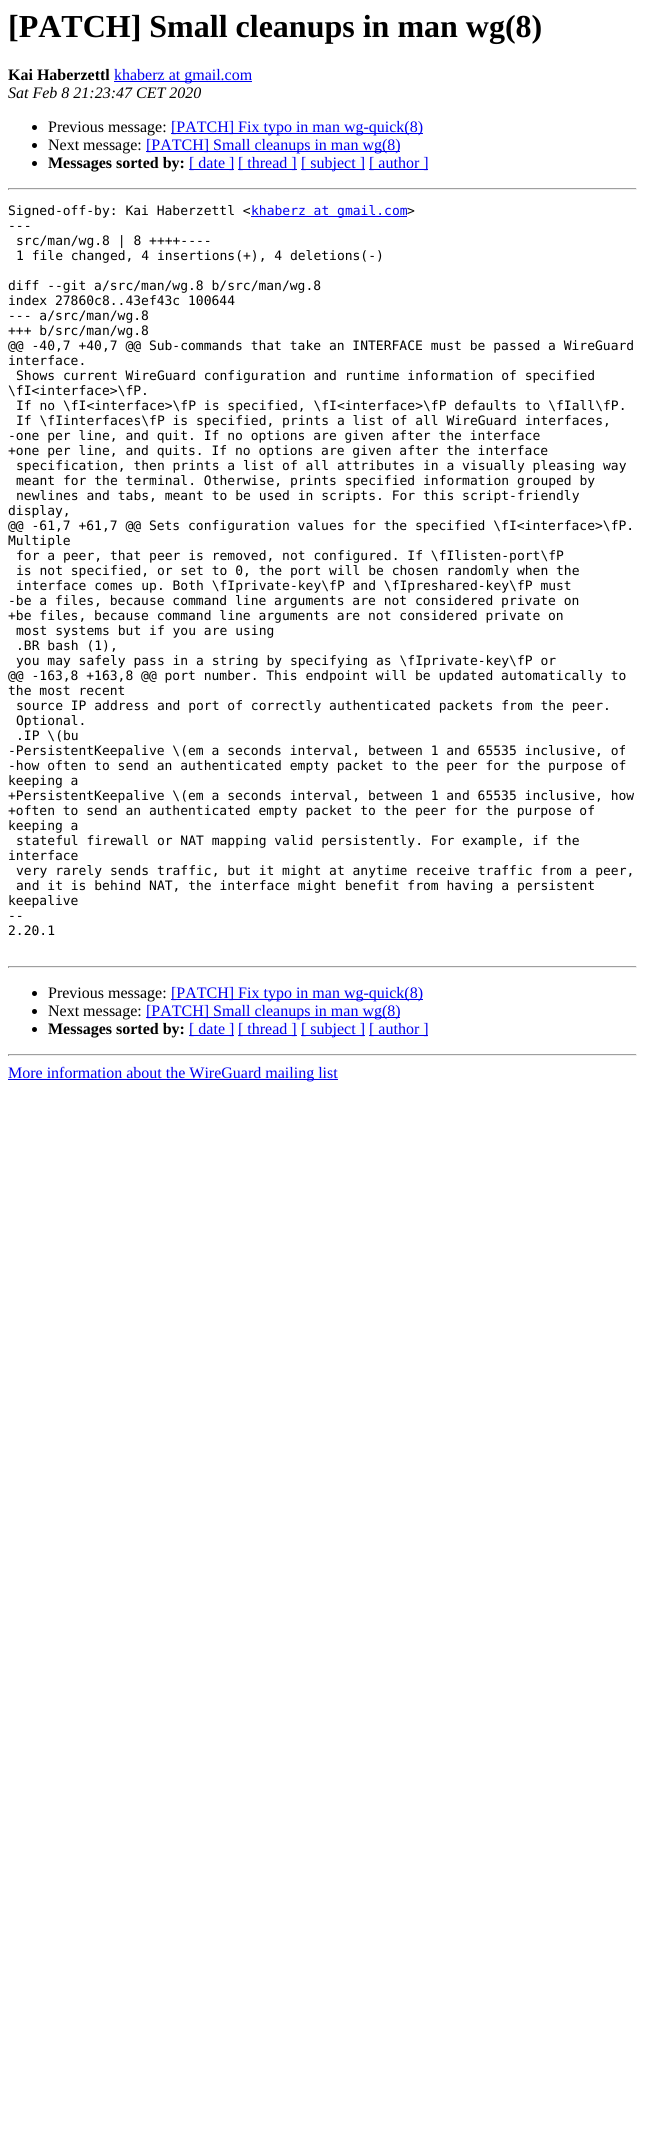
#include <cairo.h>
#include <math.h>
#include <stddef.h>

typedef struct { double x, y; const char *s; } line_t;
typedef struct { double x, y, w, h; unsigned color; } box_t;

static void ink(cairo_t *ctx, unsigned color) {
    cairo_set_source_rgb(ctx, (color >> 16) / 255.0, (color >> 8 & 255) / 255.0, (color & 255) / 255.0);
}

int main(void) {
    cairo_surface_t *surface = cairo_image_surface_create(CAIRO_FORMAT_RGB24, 645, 2143);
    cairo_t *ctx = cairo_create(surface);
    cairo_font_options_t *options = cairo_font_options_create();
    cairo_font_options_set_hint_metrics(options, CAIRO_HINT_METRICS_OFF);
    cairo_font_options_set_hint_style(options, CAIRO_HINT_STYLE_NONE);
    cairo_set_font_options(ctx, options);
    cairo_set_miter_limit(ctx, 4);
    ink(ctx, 0xFFFFFF);
    cairo_paint(ctx);
    cairo_select_font_face(ctx, "Liberation Serif", CAIRO_FONT_SLANT_NORMAL, CAIRO_FONT_WEIGHT_BOLD);
    cairo_set_font_size(ctx, 32);
    ink(ctx, 0x000000);
    cairo_move_to(ctx, 8, 37);
    cairo_show_text(ctx, "[PATCH] Small cleanups in man wg(8)");
    cairo_set_font_size(ctx, 16);
    cairo_move_to(ctx, 8, 80);
    cairo_show_text(ctx, "Kai Haberzettl");
    ink(ctx, 0x0000EE);
    cairo_rectangle(ctx, 114, 81, 138, 1);
    cairo_fill(ctx);
    cairo_select_font_face(ctx, "Liberation Serif", CAIRO_FONT_SLANT_NORMAL, CAIRO_FONT_WEIGHT_NORMAL);
    cairo_move_to(ctx, 114, 80);
    cairo_show_text(ctx, "khaberz at gmail.com");
    cairo_select_font_face(ctx, "Liberation Serif", CAIRO_FONT_SLANT_ITALIC, CAIRO_FONT_WEIGHT_NORMAL);
    ink(ctx, 0x000000);
    cairo_move_to(ctx, 8, 98);
    cairo_show_text(ctx, "Sat Feb 8 21:23:47 CET 2020");
    cairo_new_path(ctx);
    cairo_arc(ctx, 34.5, 127.5, 2.5, 0, 2 * M_PI);
    cairo_fill(ctx);
    cairo_select_font_face(ctx, "Liberation Serif", CAIRO_FONT_SLANT_NORMAL, CAIRO_FONT_WEIGHT_NORMAL);
    cairo_move_to(ctx, 48, 132);
    cairo_show_text(ctx, "Previous message:");
    ink(ctx, 0x0000EE);
    cairo_rectangle(ctx, 171, 133, 252, 1);
    cairo_fill(ctx);
    cairo_move_to(ctx, 171, 132);
    cairo_show_text(ctx, "[PATCH] Fix typo in man wg-quick(8)");
    ink(ctx, 0x000000);
    cairo_new_path(ctx);
    cairo_arc(ctx, 34.5, 145.5, 2.5, 0, 2 * M_PI);
    cairo_fill(ctx);
    cairo_move_to(ctx, 48, 150);
    cairo_show_text(ctx, "Next message:");
    ink(ctx, 0x0000EE);
    cairo_rectangle(ctx, 146, 151, 254, 1);
    cairo_fill(ctx);
    cairo_move_to(ctx, 146, 150);
    cairo_show_text(ctx, "[PATCH] Small cleanups in man wg(8)");
    ink(ctx, 0x000000);
    cairo_new_path(ctx);
    cairo_arc(ctx, 34.5, 163.5, 2.5, 0, 2 * M_PI);
    cairo_fill(ctx);
    cairo_select_font_face(ctx, "Liberation Serif", CAIRO_FONT_SLANT_NORMAL, CAIRO_FONT_WEIGHT_BOLD);
    cairo_move_to(ctx, 48, 168);
    cairo_show_text(ctx, "Messages sorted by:");
    ink(ctx, 0x0000EE);
    cairo_rectangle(ctx, 189, 169, 45, 1);
    cairo_fill(ctx);
    cairo_select_font_face(ctx, "Liberation Serif", CAIRO_FONT_SLANT_NORMAL, CAIRO_FONT_WEIGHT_NORMAL);
    cairo_move_to(ctx, 189, 168);
    cairo_show_text(ctx, "[ date ]");
    cairo_rectangle(ctx, 238, 169, 59, 1);
    cairo_fill(ctx);
    cairo_move_to(ctx, 238, 168);
    cairo_show_text(ctx, "[ thread ]");
    cairo_rectangle(ctx, 301, 169, 64, 1);
    cairo_fill(ctx);
    cairo_move_to(ctx, 301, 168);
    cairo_show_text(ctx, "[ subject ]");
    cairo_rectangle(ctx, 369, 169, 59, 1);
    cairo_fill(ctx);
    cairo_move_to(ctx, 369, 168);
    cairo_show_text(ctx, "[ author ]");
    {
        static const box_t items[] = {
            {8, 188, 629, 1, 0x9F9F9F},
            {636, 188, 1, 2, 0xEEEEEE},
            {8, 189, 629, 1, 0xEEEEEE},
            {8, 188, 1, 2, 0x9F9F9F},
        };
        for (size_t i = 0; i < sizeof items / sizeof *items; i++) {
            ink(ctx, items[i].color);
            cairo_rectangle(ctx, items[i].x, items[i].y, items[i].w, items[i].h);
            cairo_fill(ctx);
        }
    }
    cairo_select_font_face(ctx, "DejaVu Sans Mono", CAIRO_FONT_SLANT_NORMAL, CAIRO_FONT_WEIGHT_NORMAL);
    cairo_set_font_size(ctx, 13);
    ink(ctx, 0x000000);
    cairo_move_to(ctx, 8, 215);
    cairo_show_text(ctx, "Signed-off-by: Kai Haberzettl <");
    ink(ctx, 0x0000EE);
    cairo_rectangle(ctx, 251, 216, 156, 1);
    cairo_fill(ctx);
    cairo_move_to(ctx, 251, 215);
    cairo_show_text(ctx, "khaberz at gmail.com");
    ink(ctx, 0x000000);
    {
        static const line_t items[] = {
            {407, 215, ">"},
            {8, 230, "---"},
            {16, 245, "src/man/wg.8 | 8 ++++----"},
            {16, 260, "1 file changed, 4 insertions(+), 4 deletions(-)"},
            {8, 290, "diff --git a/src/man/wg.8 b/src/man/wg.8"},
            {8, 305, "index 27860c8..43ef43c 100644"},
            {8, 320, "--- a/src/man/wg.8"},
            {8, 335, "+++ b/src/man/wg.8"},
            {8, 350, "@@ -40,7 +40,7 @@ Sub-commands that take an INTERFACE must be passed a WireGuard"},
            {8, 365, "interface."},
            {16, 380, "Shows current WireGuard configuration and runtime information of specified"},
            {8, 395, "\\fI<interface>\\fP."},
            {16, 410, "If no \\fI<interface>\\fP is specified, \\fI<interface>\\fP defaults to \\fIall\\fP."},
            {16, 425, "If \\fIinterfaces\\fP is specified, prints a list of all WireGuard interfaces,"},
            {8, 440, "-one per line, and quit. If no options are given after the interface"},
            {8, 455, "+one per line, and quits. If no options are given after the interface"},
            {16, 470, "specification, then prints a list of all attributes in a visually pleasing way"},
            {16, 485, "meant for the terminal. Otherwise, prints specified information grouped by"},
            {16, 500, "newlines and tabs, meant to be used in scripts. For this script-friendly"},
            {8, 515, "display,"},
            {8, 530, "@@ -61,7 +61,7 @@ Sets configuration values for the specified \\fI<interface>\\fP."},
            {8, 545, "Multiple"},
            {16, 560, "for a peer, that peer is removed, not configured. If \\fIlisten-port\\fP"},
            {16, 575, "is not specified, or set to 0, the port will be chosen randomly when the"},
            {16, 590, "interface comes up. Both \\fIprivate-key\\fP and \\fIpreshared-key\\fP must"},
            {8, 605, "-be a files, because command line arguments are not considered private on"},
            {8, 620, "+be files, because command line arguments are not considered private on"},
            {16, 635, "most systems but if you are using"},
            {16, 650, ".BR bash (1),"},
            {16, 665, "you may safely pass in a string by specifying as \\fIprivate-key\\fP or"},
            {8, 680, "@@ -163,8 +163,8 @@ port number. This endpoint will be updated automatically to"},
            {8, 695, "the most recent"},
            {16, 710, "source IP address and port of correctly authenticated packets from the peer."},
            {16, 725, "Optional."},
            {16, 740, ".IP \\(bu"},
            {8, 755, "-PersistentKeepalive \\(em a seconds interval, between 1 and 65535 inclusive, of"},
            {8, 770, "-how often to send an authenticated empty packet to the peer for the purpose of"},
            {8, 785, "keeping a"},
            {8, 800, "+PersistentKeepalive \\(em a seconds interval, between 1 and 65535 inclusive, how"},
            {8, 815, "+often to send an authenticated empty packet to the peer for the purpose of"},
            {8, 830, "keeping a"},
            {16, 845, "stateful firewall or NAT mapping valid persistently. For example, if the"},
            {8, 860, "interface"},
            {16, 875, "very rarely sends traffic, but it might at anytime receive traffic from a peer,"},
            {16, 890, "and it is behind NAT, the interface might benefit from having a persistent"},
            {8, 905, "keepalive"},
            {8, 920, "--"},
            {8, 935, "2.20.1"},
        };
        for (size_t i = 0; i < sizeof items / sizeof *items; i++) {
            cairo_move_to(ctx, items[i].x, items[i].y);
            cairo_show_text(ctx, items[i].s);
        }
    }
    {
        static const box_t items[] = {
            {8, 966, 629, 1, 0x9F9F9F},
            {636, 966, 1, 2, 0xEEEEEE},
            {8, 967, 629, 1, 0xEEEEEE},
            {8, 966, 1, 2, 0x9F9F9F},
        };
        for (size_t i = 0; i < sizeof items / sizeof *items; i++) {
            ink(ctx, items[i].color);
            cairo_rectangle(ctx, items[i].x, items[i].y, items[i].w, items[i].h);
            cairo_fill(ctx);
        }
    }
    ink(ctx, 0x000000);
    cairo_new_path(ctx);
    cairo_arc(ctx, 34.5, 993.5, 2.5, 0, 2 * M_PI);
    cairo_fill(ctx);
    cairo_select_font_face(ctx, "Liberation Serif", CAIRO_FONT_SLANT_NORMAL, CAIRO_FONT_WEIGHT_NORMAL);
    cairo_set_font_size(ctx, 16);
    cairo_move_to(ctx, 48, 998);
    cairo_show_text(ctx, "Previous message:");
    ink(ctx, 0x0000EE);
    cairo_rectangle(ctx, 171, 999, 252, 1);
    cairo_fill(ctx);
    cairo_move_to(ctx, 171, 998);
    cairo_show_text(ctx, "[PATCH] Fix typo in man wg-quick(8)");
    ink(ctx, 0x000000);
    cairo_new_path(ctx);
    cairo_arc(ctx, 34.5, 1011.5, 2.5, 0, 2 * M_PI);
    cairo_fill(ctx);
    cairo_move_to(ctx, 48, 1016);
    cairo_show_text(ctx, "Next message:");
    ink(ctx, 0x0000EE);
    cairo_rectangle(ctx, 146, 1017, 254, 1);
    cairo_fill(ctx);
    cairo_move_to(ctx, 146, 1016);
    cairo_show_text(ctx, "[PATCH] Small cleanups in man wg(8)");
    ink(ctx, 0x000000);
    cairo_new_path(ctx);
    cairo_arc(ctx, 34.5, 1029.5, 2.5, 0, 2 * M_PI);
    cairo_fill(ctx);
    cairo_select_font_face(ctx, "Liberation Serif", CAIRO_FONT_SLANT_NORMAL, CAIRO_FONT_WEIGHT_BOLD);
    cairo_move_to(ctx, 48, 1034);
    cairo_show_text(ctx, "Messages sorted by:");
    ink(ctx, 0x0000EE);
    cairo_rectangle(ctx, 189, 1035, 45, 1);
    cairo_fill(ctx);
    cairo_select_font_face(ctx, "Liberation Serif", CAIRO_FONT_SLANT_NORMAL, CAIRO_FONT_WEIGHT_NORMAL);
    cairo_move_to(ctx, 189, 1034);
    cairo_show_text(ctx, "[ date ]");
    cairo_rectangle(ctx, 238, 1035, 59, 1);
    cairo_fill(ctx);
    cairo_move_to(ctx, 238, 1034);
    cairo_show_text(ctx, "[ thread ]");
    cairo_rectangle(ctx, 301, 1035, 64, 1);
    cairo_fill(ctx);
    cairo_move_to(ctx, 301, 1034);
    cairo_show_text(ctx, "[ subject ]");
    cairo_rectangle(ctx, 369, 1035, 59, 1);
    cairo_fill(ctx);
    cairo_move_to(ctx, 369, 1034);
    cairo_show_text(ctx, "[ author ]");
    {
        static const box_t items[] = {
            {8, 1054, 629, 1, 0x9F9F9F},
            {636, 1054, 1, 2, 0xEEEEEE},
            {8, 1055, 629, 1, 0xEEEEEE},
            {8, 1054, 1, 2, 0x9F9F9F},
            {8, 1079, 330, 1, 0x0000EE},
        };
        for (size_t i = 0; i < sizeof items / sizeof *items; i++) {
            ink(ctx, items[i].color);
            cairo_rectangle(ctx, items[i].x, items[i].y, items[i].w, items[i].h);
            cairo_fill(ctx);
        }
    }
    cairo_move_to(ctx, 8, 1078);
    cairo_show_text(ctx, "More information about the WireGuard mailing list");
    cairo_surface_write_to_png(surface, "image.png");
    cairo_font_options_destroy(options);
    cairo_destroy(ctx);
    cairo_surface_destroy(surface);
    return 0;
}
